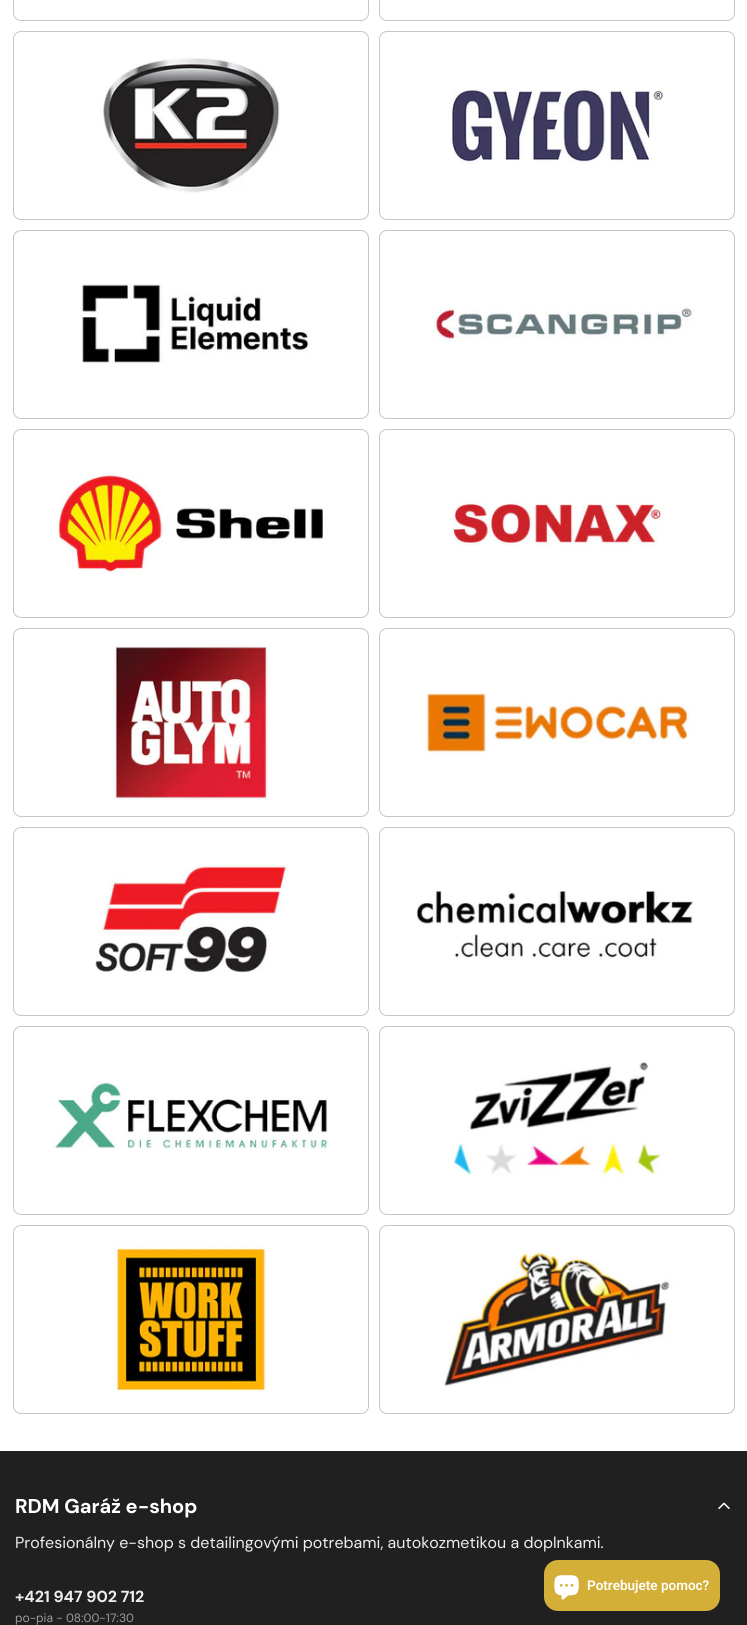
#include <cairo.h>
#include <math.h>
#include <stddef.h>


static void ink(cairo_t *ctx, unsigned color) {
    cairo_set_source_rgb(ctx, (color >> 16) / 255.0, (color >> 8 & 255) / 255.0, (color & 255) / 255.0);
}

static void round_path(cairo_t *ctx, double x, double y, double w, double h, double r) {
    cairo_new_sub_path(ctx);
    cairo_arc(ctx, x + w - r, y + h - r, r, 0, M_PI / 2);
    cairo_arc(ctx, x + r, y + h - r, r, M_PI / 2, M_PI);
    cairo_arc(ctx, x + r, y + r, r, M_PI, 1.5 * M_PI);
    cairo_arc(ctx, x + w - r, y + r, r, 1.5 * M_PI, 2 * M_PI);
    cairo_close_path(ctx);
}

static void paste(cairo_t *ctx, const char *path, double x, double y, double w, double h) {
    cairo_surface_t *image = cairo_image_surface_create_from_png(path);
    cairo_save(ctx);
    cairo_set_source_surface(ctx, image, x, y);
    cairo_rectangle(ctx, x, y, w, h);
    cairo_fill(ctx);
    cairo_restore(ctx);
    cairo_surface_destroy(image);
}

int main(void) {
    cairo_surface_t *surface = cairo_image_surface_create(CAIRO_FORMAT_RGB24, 747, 1625);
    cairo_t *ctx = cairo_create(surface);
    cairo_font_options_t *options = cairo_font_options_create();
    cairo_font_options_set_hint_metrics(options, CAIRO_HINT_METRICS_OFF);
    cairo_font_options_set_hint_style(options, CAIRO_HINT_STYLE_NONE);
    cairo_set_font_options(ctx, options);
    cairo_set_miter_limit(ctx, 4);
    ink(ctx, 0xFFFFFF);
    cairo_paint(ctx);
    round_path(ctx, 13.5, -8.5, 355, 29, 7.5);
    ink(ctx, 0xC6C6C6);
    cairo_set_line_width(ctx, 1);
    cairo_stroke(ctx);
    round_path(ctx, 379.5, -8.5, 355, 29, 7.5);
    cairo_stroke(ctx);
    round_path(ctx, 13.5, 31.5, 355, 188, 7.5);
    cairo_stroke(ctx);
    paste(ctx, "media/1.png", 103, 57, 177, 136);
    round_path(ctx, 379.5, 31.5, 355, 188, 7.5);
    cairo_stroke(ctx);
    paste(ctx, "media/2.png", 449, 87, 215, 77);
    round_path(ctx, 13.5, 230.5, 355, 188, 7.5);
    cairo_stroke(ctx);
    paste(ctx, "media/3.png", 81, 283, 229, 80);
    round_path(ctx, 379.5, 230.5, 355, 188, 7.5);
    cairo_stroke(ctx);
    paste(ctx, "media/4.png", 433, 305, 261, 37);
    round_path(ctx, 13.5, 429.5, 355, 188, 7.5);
    cairo_stroke(ctx);
    paste(ctx, "media/5.png", 55, 472, 268, 102);
    round_path(ctx, 379.5, 429.5, 355, 188, 7.5);
    cairo_stroke(ctx);
    paste(ctx, "media/6.png", 449, 501, 215, 45);
    round_path(ctx, 13.5, 628.5, 355, 188, 7.5);
    cairo_stroke(ctx);
    paste(ctx, "media/7.png", 113, 645, 156, 155);
    round_path(ctx, 379.5, 628.5, 355, 188, 7.5);
    cairo_stroke(ctx);
    paste(ctx, "media/8.png", 426, 691, 263, 65);
    round_path(ctx, 13.5, 827.5, 355, 188, 7.5);
    cairo_stroke(ctx);
    paste(ctx, "media/9.png", 95, 864, 193, 109);
    round_path(ctx, 379.5, 827.5, 355, 188, 7.5);
    cairo_stroke(ctx);
    paste(ctx, "media/10.png", 415, 890, 279, 70);
    round_path(ctx, 13.5, 1026.5, 355, 188, 7.5);
    cairo_stroke(ctx);
    paste(ctx, "media/11.png", 54, 1081, 275, 68);
    round_path(ctx, 379.5, 1026.5, 355, 188, 7.5);
    cairo_stroke(ctx);
    paste(ctx, "media/12.png", 452, 1060, 210, 118);
    round_path(ctx, 13.5, 1225.5, 355, 188, 7.5);
    cairo_stroke(ctx);
    paste(ctx, "media/13.png", 113, 1243, 154, 149);
    round_path(ctx, 379.5, 1225.5, 355, 188, 7.5);
    cairo_stroke(ctx);
    paste(ctx, "media/14.png", 443, 1251, 230, 135);
    ink(ctx, 0x202020);
    cairo_rectangle(ctx, 0, 1451, 747, 174);
    cairo_fill(ctx);
    cairo_select_font_face(ctx, "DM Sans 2", CAIRO_FONT_SLANT_NORMAL, CAIRO_FONT_WEIGHT_BOLD);
    cairo_set_font_size(ctx, 20);
    ink(ctx, 0xFFFFFF);
    cairo_move_to(ctx, 15, 1513);
    cairo_show_text(ctx, "RDM Garáž e-shop");
    paste(ctx, "media/15.png", 718, 1502, 12, 7);
    cairo_select_font_face(ctx, "DM Sans", CAIRO_FONT_SLANT_NORMAL, CAIRO_FONT_WEIGHT_NORMAL);
    cairo_set_font_size(ctx, 16);
    ink(ctx, 0xEEEEEE);
    cairo_move_to(ctx, 15, 1548);
    cairo_show_text(ctx, "Profesionálny e-shop s detailingovými potrebami, autokozmetikou a doplnkami.");
    cairo_select_font_face(ctx, "DM Sans", CAIRO_FONT_SLANT_NORMAL, CAIRO_FONT_WEIGHT_BOLD);
    cairo_move_to(ctx, 15, 1602);
    cairo_show_text(ctx, "+421 947 902 712");
    cairo_select_font_face(ctx, "DM Sans 2", CAIRO_FONT_SLANT_NORMAL, CAIRO_FONT_WEIGHT_NORMAL);
    cairo_set_font_size(ctx, 12);
    ink(ctx, 0x9C9C9C);
    cairo_move_to(ctx, 15, 1622);
    cairo_show_text(ctx, "po-pia - 08:00-17:30");
    ink(ctx, 0xD4AF37);
    round_path(ctx, 544, 1560, 176, 51, 14);
    cairo_fill(ctx);
    paste(ctx, "media/16.png", 554, 1575, 25, 25);
    cairo_select_font_face(ctx, "Roboto SemiBold", CAIRO_FONT_SLANT_NORMAL, CAIRO_FONT_WEIGHT_NORMAL);
    cairo_set_font_size(ctx, 13.5);
    ink(ctx, 0xFFFFFF);
    cairo_move_to(ctx, 587, 1590);
    cairo_show_text(ctx, "Potrebujete pomoc?");
    cairo_surface_write_to_png(surface, "image.png");
    cairo_font_options_destroy(options);
    cairo_destroy(ctx);
    cairo_surface_destroy(surface);
    return 0;
}
